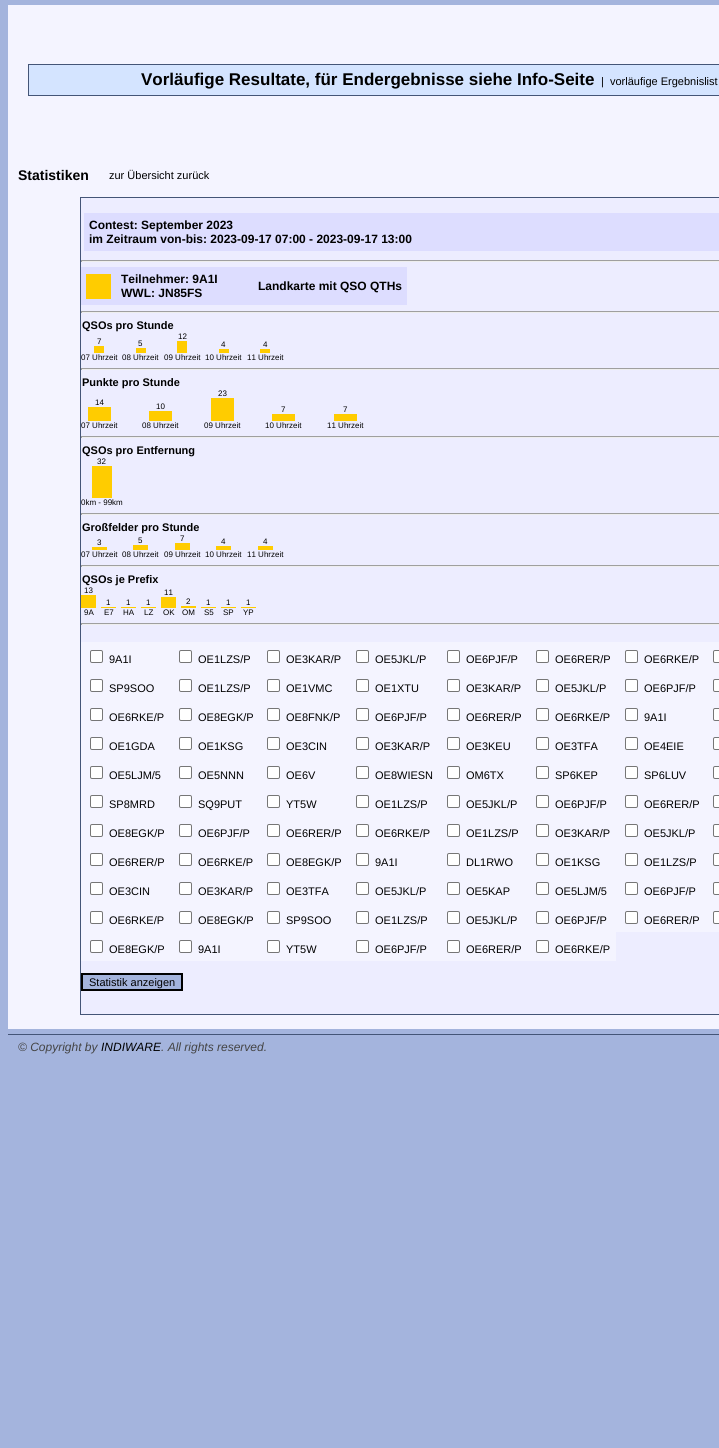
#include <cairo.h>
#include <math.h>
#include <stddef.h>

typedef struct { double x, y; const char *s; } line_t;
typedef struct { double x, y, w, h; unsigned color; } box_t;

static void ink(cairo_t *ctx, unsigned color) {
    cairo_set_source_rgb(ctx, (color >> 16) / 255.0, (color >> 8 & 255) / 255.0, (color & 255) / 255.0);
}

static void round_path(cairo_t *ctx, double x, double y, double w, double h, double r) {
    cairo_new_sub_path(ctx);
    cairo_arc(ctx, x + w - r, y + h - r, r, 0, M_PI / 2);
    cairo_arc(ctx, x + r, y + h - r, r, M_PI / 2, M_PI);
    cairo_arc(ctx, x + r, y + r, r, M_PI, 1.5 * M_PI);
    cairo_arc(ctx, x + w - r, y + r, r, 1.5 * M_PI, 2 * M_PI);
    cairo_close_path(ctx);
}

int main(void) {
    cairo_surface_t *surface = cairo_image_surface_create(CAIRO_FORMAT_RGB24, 719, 1448);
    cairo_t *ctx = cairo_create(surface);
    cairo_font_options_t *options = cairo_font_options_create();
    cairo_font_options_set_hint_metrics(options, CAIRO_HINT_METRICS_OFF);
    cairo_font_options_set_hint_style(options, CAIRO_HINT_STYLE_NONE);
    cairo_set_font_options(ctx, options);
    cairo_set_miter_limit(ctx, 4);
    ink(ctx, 0xA4B4DD);
    cairo_paint(ctx);
    {
        static const box_t items[] = {
            {8, 5, 711, 1024, 0xF4F4FF},
            {28, 64, 691, 32, 0x445577},
            {29, 65, 690, 30, 0xD4E4FF},
        };
        for (size_t i = 0; i < sizeof items / sizeof *items; i++) {
            ink(ctx, items[i].color);
            cairo_rectangle(ctx, items[i].x, items[i].y, items[i].w, items[i].h);
            cairo_fill(ctx);
        }
    }
    cairo_select_font_face(ctx, "Liberation Sans", CAIRO_FONT_SLANT_NORMAL, CAIRO_FONT_WEIGHT_BOLD);
    cairo_set_font_size(ctx, 17);
    ink(ctx, 0x000000);
    cairo_move_to(ctx, 141, 85);
    cairo_show_text(ctx, "Vorläufige Resultate, für Endergebnisse siehe Info-Seite");
    cairo_select_font_face(ctx, "Liberation Sans", CAIRO_FONT_SLANT_NORMAL, CAIRO_FONT_WEIGHT_NORMAL);
    cairo_set_font_size(ctx, 11);
    cairo_move_to(ctx, 601, 85);
    cairo_show_text(ctx, "|");
    cairo_move_to(ctx, 610, 85);
    cairo_show_text(ctx, "vorläufige Ergebnislist");
    cairo_select_font_face(ctx, "Liberation Sans", CAIRO_FONT_SLANT_NORMAL, CAIRO_FONT_WEIGHT_BOLD);
    cairo_set_font_size(ctx, 14);
    cairo_move_to(ctx, 18, 180);
    cairo_show_text(ctx, "Statistiken");
    cairo_select_font_face(ctx, "Liberation Sans", CAIRO_FONT_SLANT_NORMAL, CAIRO_FONT_WEIGHT_NORMAL);
    cairo_set_font_size(ctx, 11);
    cairo_move_to(ctx, 109, 179);
    cairo_show_text(ctx, "zur Übersicht zurück");
    {
        static const box_t items[] = {
            {80, 197, 1, 818, 0x445577},
            {81, 198, 638, 816, 0xEDEDFF},
            {81, 197, 638, 1, 0x445577},
            {84, 213, 635, 38, 0xDDDDFF},
        };
        for (size_t i = 0; i < sizeof items / sizeof *items; i++) {
            ink(ctx, items[i].color);
            cairo_rectangle(ctx, items[i].x, items[i].y, items[i].w, items[i].h);
            cairo_fill(ctx);
        }
    }
    cairo_select_font_face(ctx, "Liberation Sans", CAIRO_FONT_SLANT_NORMAL, CAIRO_FONT_WEIGHT_BOLD);
    cairo_set_font_size(ctx, 12);
    ink(ctx, 0x000000);
    cairo_move_to(ctx, 89, 229);
    cairo_show_text(ctx, "Contest: September 2023");
    cairo_move_to(ctx, 89, 243);
    cairo_show_text(ctx, "im Zeitraum von-bis: 2023-09-17 07:00 - 2023-09-17 13:00");
    {
        static const box_t items[] = {
            {81, 260, 638, 1, 0x9F9F9F},
            {81, 261, 638, 1, 0xEEEEEE},
            {81, 260, 1, 2, 0x9F9F9F},
            {81, 267, 326, 38, 0xDDDDFF},
            {86, 274, 25, 25, 0xFFCC00},
        };
        for (size_t i = 0; i < sizeof items / sizeof *items; i++) {
            ink(ctx, items[i].color);
            cairo_rectangle(ctx, items[i].x, items[i].y, items[i].w, items[i].h);
            cairo_fill(ctx);
        }
    }
    ink(ctx, 0x000000);
    {
        static const line_t items[] = {
            {121, 283, "Teilnehmer: 9A1I"},
            {121, 297, "WWL: JN85FS"},
            {258, 290, "Landkarte mit QSO QTHs"},
        };
        for (size_t i = 0; i < sizeof items / sizeof *items; i++) {
            cairo_move_to(ctx, items[i].x, items[i].y);
            cairo_show_text(ctx, items[i].s);
        }
    }
    {
        static const box_t items[] = {
            {81, 311, 638, 1, 0x9F9F9F},
            {81, 312, 638, 1, 0xEEEEEE},
            {81, 311, 1, 2, 0x9F9F9F},
        };
        for (size_t i = 0; i < sizeof items / sizeof *items; i++) {
            ink(ctx, items[i].color);
            cairo_rectangle(ctx, items[i].x, items[i].y, items[i].w, items[i].h);
            cairo_fill(ctx);
        }
    }
    cairo_set_font_size(ctx, 11);
    ink(ctx, 0x000000);
    cairo_move_to(ctx, 82, 329);
    cairo_show_text(ctx, "QSOs pro Stunde");
    cairo_select_font_face(ctx, "Liberation Sans", CAIRO_FONT_SLANT_NORMAL, CAIRO_FONT_WEIGHT_NORMAL);
    cairo_set_font_size(ctx, 8);
    cairo_move_to(ctx, 178, 339);
    cairo_show_text(ctx, "12");
    ink(ctx, 0xFFCC00);
    cairo_rectangle(ctx, 177, 341, 10, 12);
    cairo_fill(ctx);
    ink(ctx, 0x000000);
    cairo_move_to(ctx, 97, 344);
    cairo_show_text(ctx, "7");
    ink(ctx, 0xFFCC00);
    cairo_rectangle(ctx, 94, 346, 10, 7);
    cairo_fill(ctx);
    ink(ctx, 0x000000);
    cairo_move_to(ctx, 138, 346);
    cairo_show_text(ctx, "5");
    ink(ctx, 0xFFCC00);
    cairo_rectangle(ctx, 136, 348, 10, 5);
    cairo_fill(ctx);
    ink(ctx, 0x000000);
    cairo_move_to(ctx, 221, 347);
    cairo_show_text(ctx, "4");
    ink(ctx, 0xFFCC00);
    cairo_rectangle(ctx, 219, 349, 10, 4);
    cairo_fill(ctx);
    ink(ctx, 0x000000);
    cairo_move_to(ctx, 263, 347);
    cairo_show_text(ctx, "4");
    ink(ctx, 0xFFCC00);
    cairo_rectangle(ctx, 260, 349, 10, 4);
    cairo_fill(ctx);
    ink(ctx, 0x000000);
    {
        static const line_t items[] = {
            {81, 360, "07 Uhrzeit"},
            {122, 360, "08 Uhrzeit"},
            {164, 360, "09 Uhrzeit"},
            {205, 360, "10 Uhrzeit"},
            {247, 360, "11 Uhrzeit"},
        };
        for (size_t i = 0; i < sizeof items / sizeof *items; i++) {
            cairo_move_to(ctx, items[i].x, items[i].y);
            cairo_show_text(ctx, items[i].s);
        }
    }
    {
        static const box_t items[] = {
            {81, 368, 638, 1, 0x9F9F9F},
            {81, 369, 638, 1, 0xEEEEEE},
            {81, 368, 1, 2, 0x9F9F9F},
        };
        for (size_t i = 0; i < sizeof items / sizeof *items; i++) {
            ink(ctx, items[i].color);
            cairo_rectangle(ctx, items[i].x, items[i].y, items[i].w, items[i].h);
            cairo_fill(ctx);
        }
    }
    cairo_select_font_face(ctx, "Liberation Sans", CAIRO_FONT_SLANT_NORMAL, CAIRO_FONT_WEIGHT_BOLD);
    cairo_set_font_size(ctx, 11);
    ink(ctx, 0x000000);
    cairo_move_to(ctx, 82, 386);
    cairo_show_text(ctx, "Punkte pro Stunde");
    cairo_select_font_face(ctx, "Liberation Sans", CAIRO_FONT_SLANT_NORMAL, CAIRO_FONT_WEIGHT_NORMAL);
    cairo_set_font_size(ctx, 8);
    cairo_move_to(ctx, 218, 396);
    cairo_show_text(ctx, "23");
    ink(ctx, 0xFFCC00);
    cairo_rectangle(ctx, 211, 398, 23, 23);
    cairo_fill(ctx);
    ink(ctx, 0x000000);
    cairo_move_to(ctx, 95, 405);
    cairo_show_text(ctx, "14");
    ink(ctx, 0xFFCC00);
    cairo_rectangle(ctx, 88, 407, 23, 14);
    cairo_fill(ctx);
    ink(ctx, 0x000000);
    cairo_move_to(ctx, 156, 409);
    cairo_show_text(ctx, "10");
    ink(ctx, 0xFFCC00);
    cairo_rectangle(ctx, 149, 411, 23, 10);
    cairo_fill(ctx);
    ink(ctx, 0x000000);
    cairo_move_to(ctx, 281, 412);
    cairo_show_text(ctx, "7");
    ink(ctx, 0xFFCC00);
    cairo_rectangle(ctx, 272, 414, 23, 7);
    cairo_fill(ctx);
    ink(ctx, 0x000000);
    cairo_move_to(ctx, 343, 412);
    cairo_show_text(ctx, "7");
    ink(ctx, 0xFFCC00);
    cairo_rectangle(ctx, 334, 414, 23, 7);
    cairo_fill(ctx);
    ink(ctx, 0x000000);
    {
        static const line_t items[] = {
            {81, 428, "07 Uhrzeit"},
            {142, 428, "08 Uhrzeit"},
            {204, 428, "09 Uhrzeit"},
            {265, 428, "10 Uhrzeit"},
            {327, 428, "11 Uhrzeit"},
        };
        for (size_t i = 0; i < sizeof items / sizeof *items; i++) {
            cairo_move_to(ctx, items[i].x, items[i].y);
            cairo_show_text(ctx, items[i].s);
        }
    }
    {
        static const box_t items[] = {
            {81, 436, 638, 1, 0x9F9F9F},
            {81, 437, 638, 1, 0xEEEEEE},
            {81, 436, 1, 2, 0x9F9F9F},
        };
        for (size_t i = 0; i < sizeof items / sizeof *items; i++) {
            ink(ctx, items[i].color);
            cairo_rectangle(ctx, items[i].x, items[i].y, items[i].w, items[i].h);
            cairo_fill(ctx);
        }
    }
    cairo_select_font_face(ctx, "Liberation Sans", CAIRO_FONT_SLANT_NORMAL, CAIRO_FONT_WEIGHT_BOLD);
    cairo_set_font_size(ctx, 11);
    ink(ctx, 0x000000);
    cairo_move_to(ctx, 82, 454);
    cairo_show_text(ctx, "QSOs pro Entfernung");
    cairo_select_font_face(ctx, "Liberation Sans", CAIRO_FONT_SLANT_NORMAL, CAIRO_FONT_WEIGHT_NORMAL);
    cairo_set_font_size(ctx, 8);
    cairo_move_to(ctx, 97, 464);
    cairo_show_text(ctx, "32");
    ink(ctx, 0xFFCC00);
    cairo_rectangle(ctx, 92, 466, 20, 32);
    cairo_fill(ctx);
    ink(ctx, 0x000000);
    cairo_move_to(ctx, 81, 505);
    cairo_show_text(ctx, "0km - 99km");
    {
        static const box_t items[] = {
            {81, 513, 638, 1, 0x9F9F9F},
            {81, 514, 638, 1, 0xEEEEEE},
            {81, 513, 1, 2, 0x9F9F9F},
        };
        for (size_t i = 0; i < sizeof items / sizeof *items; i++) {
            ink(ctx, items[i].color);
            cairo_rectangle(ctx, items[i].x, items[i].y, items[i].w, items[i].h);
            cairo_fill(ctx);
        }
    }
    cairo_select_font_face(ctx, "Liberation Sans", CAIRO_FONT_SLANT_NORMAL, CAIRO_FONT_WEIGHT_BOLD);
    cairo_set_font_size(ctx, 11);
    ink(ctx, 0x000000);
    cairo_move_to(ctx, 82, 531);
    cairo_show_text(ctx, "Großfelder pro Stunde");
    cairo_select_font_face(ctx, "Liberation Sans", CAIRO_FONT_SLANT_NORMAL, CAIRO_FONT_WEIGHT_NORMAL);
    cairo_set_font_size(ctx, 8);
    cairo_move_to(ctx, 97, 545);
    cairo_show_text(ctx, "3");
    ink(ctx, 0xFFCC00);
    cairo_rectangle(ctx, 92, 547, 15, 3);
    cairo_fill(ctx);
    ink(ctx, 0x000000);
    cairo_move_to(ctx, 138, 543);
    cairo_show_text(ctx, "5");
    ink(ctx, 0xFFCC00);
    cairo_rectangle(ctx, 133, 545, 15, 5);
    cairo_fill(ctx);
    ink(ctx, 0x000000);
    cairo_move_to(ctx, 180, 541);
    cairo_show_text(ctx, "7");
    ink(ctx, 0xFFCC00);
    cairo_rectangle(ctx, 175, 543, 15, 7);
    cairo_fill(ctx);
    ink(ctx, 0x000000);
    cairo_move_to(ctx, 221, 544);
    cairo_show_text(ctx, "4");
    ink(ctx, 0xFFCC00);
    cairo_rectangle(ctx, 216, 546, 15, 4);
    cairo_fill(ctx);
    ink(ctx, 0x000000);
    cairo_move_to(ctx, 263, 544);
    cairo_show_text(ctx, "4");
    ink(ctx, 0xFFCC00);
    cairo_rectangle(ctx, 258, 546, 15, 4);
    cairo_fill(ctx);
    ink(ctx, 0x000000);
    {
        static const line_t items[] = {
            {81, 557, "07 Uhrzeit"},
            {122, 557, "08 Uhrzeit"},
            {164, 557, "09 Uhrzeit"},
            {205, 557, "10 Uhrzeit"},
            {247, 557, "11 Uhrzeit"},
        };
        for (size_t i = 0; i < sizeof items / sizeof *items; i++) {
            cairo_move_to(ctx, items[i].x, items[i].y);
            cairo_show_text(ctx, items[i].s);
        }
    }
    {
        static const box_t items[] = {
            {81, 565, 638, 1, 0x9F9F9F},
            {81, 566, 638, 1, 0xEEEEEE},
            {81, 565, 1, 2, 0x9F9F9F},
        };
        for (size_t i = 0; i < sizeof items / sizeof *items; i++) {
            ink(ctx, items[i].color);
            cairo_rectangle(ctx, items[i].x, items[i].y, items[i].w, items[i].h);
            cairo_fill(ctx);
        }
    }
    cairo_select_font_face(ctx, "Liberation Sans", CAIRO_FONT_SLANT_NORMAL, CAIRO_FONT_WEIGHT_BOLD);
    cairo_set_font_size(ctx, 11);
    ink(ctx, 0x000000);
    cairo_move_to(ctx, 82, 583);
    cairo_show_text(ctx, "QSOs je Prefix");
    cairo_select_font_face(ctx, "Liberation Sans", CAIRO_FONT_SLANT_NORMAL, CAIRO_FONT_WEIGHT_NORMAL);
    cairo_set_font_size(ctx, 8);
    cairo_move_to(ctx, 84, 593);
    cairo_show_text(ctx, "13");
    ink(ctx, 0xFFCC00);
    cairo_rectangle(ctx, 81, 595, 15, 13);
    cairo_fill(ctx);
    ink(ctx, 0x000000);
    cairo_move_to(ctx, 164, 595);
    cairo_show_text(ctx, "11");
    ink(ctx, 0xFFCC00);
    cairo_rectangle(ctx, 161, 597, 15, 11);
    cairo_fill(ctx);
    ink(ctx, 0x000000);
    cairo_move_to(ctx, 106, 605);
    cairo_show_text(ctx, "1");
    ink(ctx, 0xFFCC00);
    cairo_rectangle(ctx, 101, 607, 15, 1);
    cairo_fill(ctx);
    ink(ctx, 0x000000);
    cairo_move_to(ctx, 126, 605);
    cairo_show_text(ctx, "1");
    ink(ctx, 0xFFCC00);
    cairo_rectangle(ctx, 121, 607, 15, 1);
    cairo_fill(ctx);
    ink(ctx, 0x000000);
    cairo_move_to(ctx, 146, 605);
    cairo_show_text(ctx, "1");
    ink(ctx, 0xFFCC00);
    cairo_rectangle(ctx, 141, 607, 15, 1);
    cairo_fill(ctx);
    ink(ctx, 0x000000);
    cairo_move_to(ctx, 186, 604);
    cairo_show_text(ctx, "2");
    ink(ctx, 0xFFCC00);
    cairo_rectangle(ctx, 181, 606, 15, 2);
    cairo_fill(ctx);
    ink(ctx, 0x000000);
    cairo_move_to(ctx, 206, 605);
    cairo_show_text(ctx, "1");
    ink(ctx, 0xFFCC00);
    cairo_rectangle(ctx, 201, 607, 15, 1);
    cairo_fill(ctx);
    ink(ctx, 0x000000);
    cairo_move_to(ctx, 226, 605);
    cairo_show_text(ctx, "1");
    ink(ctx, 0xFFCC00);
    cairo_rectangle(ctx, 221, 607, 15, 1);
    cairo_fill(ctx);
    ink(ctx, 0x000000);
    cairo_move_to(ctx, 246, 605);
    cairo_show_text(ctx, "1");
    ink(ctx, 0xFFCC00);
    cairo_rectangle(ctx, 241, 607, 15, 1);
    cairo_fill(ctx);
    ink(ctx, 0x000000);
    {
        static const line_t items[] = {
            {84, 615, "9A"},
            {104, 615, "E7"},
            {123, 615, "HA"},
            {144, 615, "LZ"},
            {163, 615, "OK"},
            {182, 615, "OM"},
            {204, 615, "S5"},
            {223, 615, "SP"},
            {243, 615, "YP"},
        };
        for (size_t i = 0; i < sizeof items / sizeof *items; i++) {
            cairo_move_to(ctx, items[i].x, items[i].y);
            cairo_show_text(ctx, items[i].s);
        }
    }
    {
        static const box_t items[] = {
            {81, 623, 638, 1, 0x9F9F9F},
            {81, 624, 638, 1, 0xEEEEEE},
            {81, 623, 1, 2, 0x9F9F9F},
            {81, 642, 638, 29, 0xF4F4FF},
        };
        for (size_t i = 0; i < sizeof items / sizeof *items; i++) {
            ink(ctx, items[i].color);
            cairo_rectangle(ctx, items[i].x, items[i].y, items[i].w, items[i].h);
            cairo_fill(ctx);
        }
    }
    ink(ctx, 0xFFFFFF);
    round_path(ctx, 90.5, 650.5, 12, 12, 1.5);
    cairo_fill_preserve(ctx);
    ink(ctx, 0x767676);
    cairo_set_line_width(ctx, 1);
    cairo_stroke(ctx);
    cairo_set_font_size(ctx, 11);
    ink(ctx, 0x000000);
    cairo_move_to(ctx, 109, 663);
    cairo_show_text(ctx, "9A1I");
    ink(ctx, 0xFFFFFF);
    round_path(ctx, 179.5, 650.5, 12, 12, 1.5);
    cairo_fill_preserve(ctx);
    ink(ctx, 0x767676);
    cairo_stroke(ctx);
    ink(ctx, 0x000000);
    cairo_move_to(ctx, 198, 663);
    cairo_show_text(ctx, "OE1LZS/P");
    ink(ctx, 0xFFFFFF);
    round_path(ctx, 267.5, 650.5, 12, 12, 1.5);
    cairo_fill_preserve(ctx);
    ink(ctx, 0x767676);
    cairo_stroke(ctx);
    ink(ctx, 0x000000);
    cairo_move_to(ctx, 286, 663);
    cairo_show_text(ctx, "OE3KAR/P");
    ink(ctx, 0xFFFFFF);
    round_path(ctx, 356.5, 650.5, 12, 12, 1.5);
    cairo_fill_preserve(ctx);
    ink(ctx, 0x767676);
    cairo_stroke(ctx);
    ink(ctx, 0x000000);
    cairo_move_to(ctx, 375, 663);
    cairo_show_text(ctx, "OE5JKL/P");
    ink(ctx, 0xFFFFFF);
    round_path(ctx, 447.5, 650.5, 12, 12, 1.5);
    cairo_fill_preserve(ctx);
    ink(ctx, 0x767676);
    cairo_stroke(ctx);
    ink(ctx, 0x000000);
    cairo_move_to(ctx, 466, 663);
    cairo_show_text(ctx, "OE6PJF/P");
    ink(ctx, 0xFFFFFF);
    round_path(ctx, 536.5, 650.5, 12, 12, 1.5);
    cairo_fill_preserve(ctx);
    ink(ctx, 0x767676);
    cairo_stroke(ctx);
    ink(ctx, 0x000000);
    cairo_move_to(ctx, 555, 663);
    cairo_show_text(ctx, "OE6RER/P");
    ink(ctx, 0xFFFFFF);
    round_path(ctx, 625.5, 650.5, 12, 12, 1.5);
    cairo_fill_preserve(ctx);
    ink(ctx, 0x767676);
    cairo_stroke(ctx);
    ink(ctx, 0x000000);
    cairo_move_to(ctx, 644, 663);
    cairo_show_text(ctx, "OE6RKE/P");
    ink(ctx, 0xFFFFFF);
    round_path(ctx, 713.5, 650.5, 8, 12, 1.5);
    cairo_fill_preserve(ctx);
    ink(ctx, 0x767676);
    cairo_stroke(ctx);
    ink(ctx, 0xF4F4FF);
    cairo_rectangle(ctx, 81, 671, 638, 29);
    cairo_fill(ctx);
    ink(ctx, 0xFFFFFF);
    round_path(ctx, 90.5, 679.5, 12, 12, 1.5);
    cairo_fill_preserve(ctx);
    ink(ctx, 0x767676);
    cairo_stroke(ctx);
    ink(ctx, 0x000000);
    cairo_move_to(ctx, 109, 692);
    cairo_show_text(ctx, "SP9SOO");
    ink(ctx, 0xFFFFFF);
    round_path(ctx, 179.5, 679.5, 12, 12, 1.5);
    cairo_fill_preserve(ctx);
    ink(ctx, 0x767676);
    cairo_stroke(ctx);
    ink(ctx, 0x000000);
    cairo_move_to(ctx, 198, 692);
    cairo_show_text(ctx, "OE1LZS/P");
    ink(ctx, 0xFFFFFF);
    round_path(ctx, 267.5, 679.5, 12, 12, 1.5);
    cairo_fill_preserve(ctx);
    ink(ctx, 0x767676);
    cairo_stroke(ctx);
    ink(ctx, 0x000000);
    cairo_move_to(ctx, 286, 692);
    cairo_show_text(ctx, "OE1VMC");
    ink(ctx, 0xFFFFFF);
    round_path(ctx, 356.5, 679.5, 12, 12, 1.5);
    cairo_fill_preserve(ctx);
    ink(ctx, 0x767676);
    cairo_stroke(ctx);
    ink(ctx, 0x000000);
    cairo_move_to(ctx, 375, 692);
    cairo_show_text(ctx, "OE1XTU");
    ink(ctx, 0xFFFFFF);
    round_path(ctx, 447.5, 679.5, 12, 12, 1.5);
    cairo_fill_preserve(ctx);
    ink(ctx, 0x767676);
    cairo_stroke(ctx);
    ink(ctx, 0x000000);
    cairo_move_to(ctx, 466, 692);
    cairo_show_text(ctx, "OE3KAR/P");
    ink(ctx, 0xFFFFFF);
    round_path(ctx, 536.5, 679.5, 12, 12, 1.5);
    cairo_fill_preserve(ctx);
    ink(ctx, 0x767676);
    cairo_stroke(ctx);
    ink(ctx, 0x000000);
    cairo_move_to(ctx, 555, 692);
    cairo_show_text(ctx, "OE5JKL/P");
    ink(ctx, 0xFFFFFF);
    round_path(ctx, 625.5, 679.5, 12, 12, 1.5);
    cairo_fill_preserve(ctx);
    ink(ctx, 0x767676);
    cairo_stroke(ctx);
    ink(ctx, 0x000000);
    cairo_move_to(ctx, 644, 692);
    cairo_show_text(ctx, "OE6PJF/P");
    ink(ctx, 0xFFFFFF);
    round_path(ctx, 713.5, 679.5, 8, 12, 1.5);
    cairo_fill_preserve(ctx);
    ink(ctx, 0x767676);
    cairo_stroke(ctx);
    ink(ctx, 0xF4F4FF);
    cairo_rectangle(ctx, 81, 700, 638, 29);
    cairo_fill(ctx);
    ink(ctx, 0xFFFFFF);
    round_path(ctx, 90.5, 708.5, 12, 12, 1.5);
    cairo_fill_preserve(ctx);
    ink(ctx, 0x767676);
    cairo_stroke(ctx);
    ink(ctx, 0x000000);
    cairo_move_to(ctx, 109, 721);
    cairo_show_text(ctx, "OE6RKE/P");
    ink(ctx, 0xFFFFFF);
    round_path(ctx, 179.5, 708.5, 12, 12, 1.5);
    cairo_fill_preserve(ctx);
    ink(ctx, 0x767676);
    cairo_stroke(ctx);
    ink(ctx, 0x000000);
    cairo_move_to(ctx, 198, 721);
    cairo_show_text(ctx, "OE8EGK/P");
    ink(ctx, 0xFFFFFF);
    round_path(ctx, 267.5, 708.5, 12, 12, 1.5);
    cairo_fill_preserve(ctx);
    ink(ctx, 0x767676);
    cairo_stroke(ctx);
    ink(ctx, 0x000000);
    cairo_move_to(ctx, 286, 721);
    cairo_show_text(ctx, "OE8FNK/P");
    ink(ctx, 0xFFFFFF);
    round_path(ctx, 356.5, 708.5, 12, 12, 1.5);
    cairo_fill_preserve(ctx);
    ink(ctx, 0x767676);
    cairo_stroke(ctx);
    ink(ctx, 0x000000);
    cairo_move_to(ctx, 375, 721);
    cairo_show_text(ctx, "OE6PJF/P");
    ink(ctx, 0xFFFFFF);
    round_path(ctx, 447.5, 708.5, 12, 12, 1.5);
    cairo_fill_preserve(ctx);
    ink(ctx, 0x767676);
    cairo_stroke(ctx);
    ink(ctx, 0x000000);
    cairo_move_to(ctx, 466, 721);
    cairo_show_text(ctx, "OE6RER/P");
    ink(ctx, 0xFFFFFF);
    round_path(ctx, 536.5, 708.5, 12, 12, 1.5);
    cairo_fill_preserve(ctx);
    ink(ctx, 0x767676);
    cairo_stroke(ctx);
    ink(ctx, 0x000000);
    cairo_move_to(ctx, 555, 721);
    cairo_show_text(ctx, "OE6RKE/P");
    ink(ctx, 0xFFFFFF);
    round_path(ctx, 625.5, 708.5, 12, 12, 1.5);
    cairo_fill_preserve(ctx);
    ink(ctx, 0x767676);
    cairo_stroke(ctx);
    ink(ctx, 0x000000);
    cairo_move_to(ctx, 644, 721);
    cairo_show_text(ctx, "9A1I");
    ink(ctx, 0xFFFFFF);
    round_path(ctx, 713.5, 708.5, 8, 12, 1.5);
    cairo_fill_preserve(ctx);
    ink(ctx, 0x767676);
    cairo_stroke(ctx);
    ink(ctx, 0xF4F4FF);
    cairo_rectangle(ctx, 81, 729, 638, 29);
    cairo_fill(ctx);
    ink(ctx, 0xFFFFFF);
    round_path(ctx, 90.5, 737.5, 12, 12, 1.5);
    cairo_fill_preserve(ctx);
    ink(ctx, 0x767676);
    cairo_stroke(ctx);
    ink(ctx, 0x000000);
    cairo_move_to(ctx, 109, 750);
    cairo_show_text(ctx, "OE1GDA");
    ink(ctx, 0xFFFFFF);
    round_path(ctx, 179.5, 737.5, 12, 12, 1.5);
    cairo_fill_preserve(ctx);
    ink(ctx, 0x767676);
    cairo_stroke(ctx);
    ink(ctx, 0x000000);
    cairo_move_to(ctx, 198, 750);
    cairo_show_text(ctx, "OE1KSG");
    ink(ctx, 0xFFFFFF);
    round_path(ctx, 267.5, 737.5, 12, 12, 1.5);
    cairo_fill_preserve(ctx);
    ink(ctx, 0x767676);
    cairo_stroke(ctx);
    ink(ctx, 0x000000);
    cairo_move_to(ctx, 286, 750);
    cairo_show_text(ctx, "OE3CIN");
    ink(ctx, 0xFFFFFF);
    round_path(ctx, 356.5, 737.5, 12, 12, 1.5);
    cairo_fill_preserve(ctx);
    ink(ctx, 0x767676);
    cairo_stroke(ctx);
    ink(ctx, 0x000000);
    cairo_move_to(ctx, 375, 750);
    cairo_show_text(ctx, "OE3KAR/P");
    ink(ctx, 0xFFFFFF);
    round_path(ctx, 447.5, 737.5, 12, 12, 1.5);
    cairo_fill_preserve(ctx);
    ink(ctx, 0x767676);
    cairo_stroke(ctx);
    ink(ctx, 0x000000);
    cairo_move_to(ctx, 466, 750);
    cairo_show_text(ctx, "OE3KEU");
    ink(ctx, 0xFFFFFF);
    round_path(ctx, 536.5, 737.5, 12, 12, 1.5);
    cairo_fill_preserve(ctx);
    ink(ctx, 0x767676);
    cairo_stroke(ctx);
    ink(ctx, 0x000000);
    cairo_move_to(ctx, 555, 750);
    cairo_show_text(ctx, "OE3TFA");
    ink(ctx, 0xFFFFFF);
    round_path(ctx, 625.5, 737.5, 12, 12, 1.5);
    cairo_fill_preserve(ctx);
    ink(ctx, 0x767676);
    cairo_stroke(ctx);
    ink(ctx, 0x000000);
    cairo_move_to(ctx, 644, 750);
    cairo_show_text(ctx, "OE4EIE");
    ink(ctx, 0xFFFFFF);
    round_path(ctx, 713.5, 737.5, 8, 12, 1.5);
    cairo_fill_preserve(ctx);
    ink(ctx, 0x767676);
    cairo_stroke(ctx);
    ink(ctx, 0xF4F4FF);
    cairo_rectangle(ctx, 81, 758, 638, 29);
    cairo_fill(ctx);
    ink(ctx, 0xFFFFFF);
    round_path(ctx, 90.5, 766.5, 12, 12, 1.5);
    cairo_fill_preserve(ctx);
    ink(ctx, 0x767676);
    cairo_stroke(ctx);
    ink(ctx, 0x000000);
    cairo_move_to(ctx, 109, 779);
    cairo_show_text(ctx, "OE5LJM/5");
    ink(ctx, 0xFFFFFF);
    round_path(ctx, 179.5, 766.5, 12, 12, 1.5);
    cairo_fill_preserve(ctx);
    ink(ctx, 0x767676);
    cairo_stroke(ctx);
    ink(ctx, 0x000000);
    cairo_move_to(ctx, 198, 779);
    cairo_show_text(ctx, "OE5NNN");
    ink(ctx, 0xFFFFFF);
    round_path(ctx, 267.5, 766.5, 12, 12, 1.5);
    cairo_fill_preserve(ctx);
    ink(ctx, 0x767676);
    cairo_stroke(ctx);
    ink(ctx, 0x000000);
    cairo_move_to(ctx, 286, 779);
    cairo_show_text(ctx, "OE6V");
    ink(ctx, 0xFFFFFF);
    round_path(ctx, 356.5, 766.5, 12, 12, 1.5);
    cairo_fill_preserve(ctx);
    ink(ctx, 0x767676);
    cairo_stroke(ctx);
    ink(ctx, 0x000000);
    cairo_move_to(ctx, 375, 779);
    cairo_show_text(ctx, "OE8WIESN");
    ink(ctx, 0xFFFFFF);
    round_path(ctx, 447.5, 766.5, 12, 12, 1.5);
    cairo_fill_preserve(ctx);
    ink(ctx, 0x767676);
    cairo_stroke(ctx);
    ink(ctx, 0x000000);
    cairo_move_to(ctx, 466, 779);
    cairo_show_text(ctx, "OM6TX");
    ink(ctx, 0xFFFFFF);
    round_path(ctx, 536.5, 766.5, 12, 12, 1.5);
    cairo_fill_preserve(ctx);
    ink(ctx, 0x767676);
    cairo_stroke(ctx);
    ink(ctx, 0x000000);
    cairo_move_to(ctx, 555, 779);
    cairo_show_text(ctx, "SP6KEP");
    ink(ctx, 0xFFFFFF);
    round_path(ctx, 625.5, 766.5, 12, 12, 1.5);
    cairo_fill_preserve(ctx);
    ink(ctx, 0x767676);
    cairo_stroke(ctx);
    ink(ctx, 0x000000);
    cairo_move_to(ctx, 644, 779);
    cairo_show_text(ctx, "SP6LUV");
    ink(ctx, 0xFFFFFF);
    round_path(ctx, 713.5, 766.5, 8, 12, 1.5);
    cairo_fill_preserve(ctx);
    ink(ctx, 0x767676);
    cairo_stroke(ctx);
    ink(ctx, 0xF4F4FF);
    cairo_rectangle(ctx, 81, 787, 638, 29);
    cairo_fill(ctx);
    ink(ctx, 0xFFFFFF);
    round_path(ctx, 90.5, 795.5, 12, 12, 1.5);
    cairo_fill_preserve(ctx);
    ink(ctx, 0x767676);
    cairo_stroke(ctx);
    ink(ctx, 0x000000);
    cairo_move_to(ctx, 109, 808);
    cairo_show_text(ctx, "SP8MRD");
    ink(ctx, 0xFFFFFF);
    round_path(ctx, 179.5, 795.5, 12, 12, 1.5);
    cairo_fill_preserve(ctx);
    ink(ctx, 0x767676);
    cairo_stroke(ctx);
    ink(ctx, 0x000000);
    cairo_move_to(ctx, 198, 808);
    cairo_show_text(ctx, "SQ9PUT");
    ink(ctx, 0xFFFFFF);
    round_path(ctx, 267.5, 795.5, 12, 12, 1.5);
    cairo_fill_preserve(ctx);
    ink(ctx, 0x767676);
    cairo_stroke(ctx);
    ink(ctx, 0x000000);
    cairo_move_to(ctx, 286, 808);
    cairo_show_text(ctx, "YT5W");
    ink(ctx, 0xFFFFFF);
    round_path(ctx, 356.5, 795.5, 12, 12, 1.5);
    cairo_fill_preserve(ctx);
    ink(ctx, 0x767676);
    cairo_stroke(ctx);
    ink(ctx, 0x000000);
    cairo_move_to(ctx, 375, 808);
    cairo_show_text(ctx, "OE1LZS/P");
    ink(ctx, 0xFFFFFF);
    round_path(ctx, 447.5, 795.5, 12, 12, 1.5);
    cairo_fill_preserve(ctx);
    ink(ctx, 0x767676);
    cairo_stroke(ctx);
    ink(ctx, 0x000000);
    cairo_move_to(ctx, 466, 808);
    cairo_show_text(ctx, "OE5JKL/P");
    ink(ctx, 0xFFFFFF);
    round_path(ctx, 536.5, 795.5, 12, 12, 1.5);
    cairo_fill_preserve(ctx);
    ink(ctx, 0x767676);
    cairo_stroke(ctx);
    ink(ctx, 0x000000);
    cairo_move_to(ctx, 555, 808);
    cairo_show_text(ctx, "OE6PJF/P");
    ink(ctx, 0xFFFFFF);
    round_path(ctx, 625.5, 795.5, 12, 12, 1.5);
    cairo_fill_preserve(ctx);
    ink(ctx, 0x767676);
    cairo_stroke(ctx);
    ink(ctx, 0x000000);
    cairo_move_to(ctx, 644, 808);
    cairo_show_text(ctx, "OE6RER/P");
    ink(ctx, 0xFFFFFF);
    round_path(ctx, 713.5, 795.5, 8, 12, 1.5);
    cairo_fill_preserve(ctx);
    ink(ctx, 0x767676);
    cairo_stroke(ctx);
    ink(ctx, 0xF4F4FF);
    cairo_rectangle(ctx, 81, 816, 638, 29);
    cairo_fill(ctx);
    ink(ctx, 0xFFFFFF);
    round_path(ctx, 90.5, 824.5, 12, 12, 1.5);
    cairo_fill_preserve(ctx);
    ink(ctx, 0x767676);
    cairo_stroke(ctx);
    ink(ctx, 0x000000);
    cairo_move_to(ctx, 109, 837);
    cairo_show_text(ctx, "OE8EGK/P");
    ink(ctx, 0xFFFFFF);
    round_path(ctx, 179.5, 824.5, 12, 12, 1.5);
    cairo_fill_preserve(ctx);
    ink(ctx, 0x767676);
    cairo_stroke(ctx);
    ink(ctx, 0x000000);
    cairo_move_to(ctx, 198, 837);
    cairo_show_text(ctx, "OE6PJF/P");
    ink(ctx, 0xFFFFFF);
    round_path(ctx, 267.5, 824.5, 12, 12, 1.5);
    cairo_fill_preserve(ctx);
    ink(ctx, 0x767676);
    cairo_stroke(ctx);
    ink(ctx, 0x000000);
    cairo_move_to(ctx, 286, 837);
    cairo_show_text(ctx, "OE6RER/P");
    ink(ctx, 0xFFFFFF);
    round_path(ctx, 356.5, 824.5, 12, 12, 1.5);
    cairo_fill_preserve(ctx);
    ink(ctx, 0x767676);
    cairo_stroke(ctx);
    ink(ctx, 0x000000);
    cairo_move_to(ctx, 375, 837);
    cairo_show_text(ctx, "OE6RKE/P");
    ink(ctx, 0xFFFFFF);
    round_path(ctx, 447.5, 824.5, 12, 12, 1.5);
    cairo_fill_preserve(ctx);
    ink(ctx, 0x767676);
    cairo_stroke(ctx);
    ink(ctx, 0x000000);
    cairo_move_to(ctx, 466, 837);
    cairo_show_text(ctx, "OE1LZS/P");
    ink(ctx, 0xFFFFFF);
    round_path(ctx, 536.5, 824.5, 12, 12, 1.5);
    cairo_fill_preserve(ctx);
    ink(ctx, 0x767676);
    cairo_stroke(ctx);
    ink(ctx, 0x000000);
    cairo_move_to(ctx, 555, 837);
    cairo_show_text(ctx, "OE3KAR/P");
    ink(ctx, 0xFFFFFF);
    round_path(ctx, 625.5, 824.5, 12, 12, 1.5);
    cairo_fill_preserve(ctx);
    ink(ctx, 0x767676);
    cairo_stroke(ctx);
    ink(ctx, 0x000000);
    cairo_move_to(ctx, 644, 837);
    cairo_show_text(ctx, "OE5JKL/P");
    ink(ctx, 0xFFFFFF);
    round_path(ctx, 713.5, 824.5, 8, 12, 1.5);
    cairo_fill_preserve(ctx);
    ink(ctx, 0x767676);
    cairo_stroke(ctx);
    ink(ctx, 0xF4F4FF);
    cairo_rectangle(ctx, 81, 845, 638, 29);
    cairo_fill(ctx);
    ink(ctx, 0xFFFFFF);
    round_path(ctx, 90.5, 853.5, 12, 12, 1.5);
    cairo_fill_preserve(ctx);
    ink(ctx, 0x767676);
    cairo_stroke(ctx);
    ink(ctx, 0x000000);
    cairo_move_to(ctx, 109, 866);
    cairo_show_text(ctx, "OE6RER/P");
    ink(ctx, 0xFFFFFF);
    round_path(ctx, 179.5, 853.5, 12, 12, 1.5);
    cairo_fill_preserve(ctx);
    ink(ctx, 0x767676);
    cairo_stroke(ctx);
    ink(ctx, 0x000000);
    cairo_move_to(ctx, 198, 866);
    cairo_show_text(ctx, "OE6RKE/P");
    ink(ctx, 0xFFFFFF);
    round_path(ctx, 267.5, 853.5, 12, 12, 1.5);
    cairo_fill_preserve(ctx);
    ink(ctx, 0x767676);
    cairo_stroke(ctx);
    ink(ctx, 0x000000);
    cairo_move_to(ctx, 286, 866);
    cairo_show_text(ctx, "OE8EGK/P");
    ink(ctx, 0xFFFFFF);
    round_path(ctx, 356.5, 853.5, 12, 12, 1.5);
    cairo_fill_preserve(ctx);
    ink(ctx, 0x767676);
    cairo_stroke(ctx);
    ink(ctx, 0x000000);
    cairo_move_to(ctx, 375, 866);
    cairo_show_text(ctx, "9A1I");
    ink(ctx, 0xFFFFFF);
    round_path(ctx, 447.5, 853.5, 12, 12, 1.5);
    cairo_fill_preserve(ctx);
    ink(ctx, 0x767676);
    cairo_stroke(ctx);
    ink(ctx, 0x000000);
    cairo_move_to(ctx, 466, 866);
    cairo_show_text(ctx, "DL1RWO");
    ink(ctx, 0xFFFFFF);
    round_path(ctx, 536.5, 853.5, 12, 12, 1.5);
    cairo_fill_preserve(ctx);
    ink(ctx, 0x767676);
    cairo_stroke(ctx);
    ink(ctx, 0x000000);
    cairo_move_to(ctx, 555, 866);
    cairo_show_text(ctx, "OE1KSG");
    ink(ctx, 0xFFFFFF);
    round_path(ctx, 625.5, 853.5, 12, 12, 1.5);
    cairo_fill_preserve(ctx);
    ink(ctx, 0x767676);
    cairo_stroke(ctx);
    ink(ctx, 0x000000);
    cairo_move_to(ctx, 644, 866);
    cairo_show_text(ctx, "OE1LZS/P");
    ink(ctx, 0xFFFFFF);
    round_path(ctx, 713.5, 853.5, 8, 12, 1.5);
    cairo_fill_preserve(ctx);
    ink(ctx, 0x767676);
    cairo_stroke(ctx);
    ink(ctx, 0xF4F4FF);
    cairo_rectangle(ctx, 81, 874, 638, 29);
    cairo_fill(ctx);
    ink(ctx, 0xFFFFFF);
    round_path(ctx, 90.5, 882.5, 12, 12, 1.5);
    cairo_fill_preserve(ctx);
    ink(ctx, 0x767676);
    cairo_stroke(ctx);
    ink(ctx, 0x000000);
    cairo_move_to(ctx, 109, 895);
    cairo_show_text(ctx, "OE3CIN");
    ink(ctx, 0xFFFFFF);
    round_path(ctx, 179.5, 882.5, 12, 12, 1.5);
    cairo_fill_preserve(ctx);
    ink(ctx, 0x767676);
    cairo_stroke(ctx);
    ink(ctx, 0x000000);
    cairo_move_to(ctx, 198, 895);
    cairo_show_text(ctx, "OE3KAR/P");
    ink(ctx, 0xFFFFFF);
    round_path(ctx, 267.5, 882.5, 12, 12, 1.5);
    cairo_fill_preserve(ctx);
    ink(ctx, 0x767676);
    cairo_stroke(ctx);
    ink(ctx, 0x000000);
    cairo_move_to(ctx, 286, 895);
    cairo_show_text(ctx, "OE3TFA");
    ink(ctx, 0xFFFFFF);
    round_path(ctx, 356.5, 882.5, 12, 12, 1.5);
    cairo_fill_preserve(ctx);
    ink(ctx, 0x767676);
    cairo_stroke(ctx);
    ink(ctx, 0x000000);
    cairo_move_to(ctx, 375, 895);
    cairo_show_text(ctx, "OE5JKL/P");
    ink(ctx, 0xFFFFFF);
    round_path(ctx, 447.5, 882.5, 12, 12, 1.5);
    cairo_fill_preserve(ctx);
    ink(ctx, 0x767676);
    cairo_stroke(ctx);
    ink(ctx, 0x000000);
    cairo_move_to(ctx, 466, 895);
    cairo_show_text(ctx, "OE5KAP");
    ink(ctx, 0xFFFFFF);
    round_path(ctx, 536.5, 882.5, 12, 12, 1.5);
    cairo_fill_preserve(ctx);
    ink(ctx, 0x767676);
    cairo_stroke(ctx);
    ink(ctx, 0x000000);
    cairo_move_to(ctx, 555, 895);
    cairo_show_text(ctx, "OE5LJM/5");
    ink(ctx, 0xFFFFFF);
    round_path(ctx, 625.5, 882.5, 12, 12, 1.5);
    cairo_fill_preserve(ctx);
    ink(ctx, 0x767676);
    cairo_stroke(ctx);
    ink(ctx, 0x000000);
    cairo_move_to(ctx, 644, 895);
    cairo_show_text(ctx, "OE6PJF/P");
    ink(ctx, 0xFFFFFF);
    round_path(ctx, 713.5, 882.5, 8, 12, 1.5);
    cairo_fill_preserve(ctx);
    ink(ctx, 0x767676);
    cairo_stroke(ctx);
    ink(ctx, 0xF4F4FF);
    cairo_rectangle(ctx, 81, 903, 638, 29);
    cairo_fill(ctx);
    ink(ctx, 0xFFFFFF);
    round_path(ctx, 90.5, 911.5, 12, 12, 1.5);
    cairo_fill_preserve(ctx);
    ink(ctx, 0x767676);
    cairo_stroke(ctx);
    ink(ctx, 0x000000);
    cairo_move_to(ctx, 109, 924);
    cairo_show_text(ctx, "OE6RKE/P");
    ink(ctx, 0xFFFFFF);
    round_path(ctx, 179.5, 911.5, 12, 12, 1.5);
    cairo_fill_preserve(ctx);
    ink(ctx, 0x767676);
    cairo_stroke(ctx);
    ink(ctx, 0x000000);
    cairo_move_to(ctx, 198, 924);
    cairo_show_text(ctx, "OE8EGK/P");
    ink(ctx, 0xFFFFFF);
    round_path(ctx, 267.5, 911.5, 12, 12, 1.5);
    cairo_fill_preserve(ctx);
    ink(ctx, 0x767676);
    cairo_stroke(ctx);
    ink(ctx, 0x000000);
    cairo_move_to(ctx, 286, 924);
    cairo_show_text(ctx, "SP9SOO");
    ink(ctx, 0xFFFFFF);
    round_path(ctx, 356.5, 911.5, 12, 12, 1.5);
    cairo_fill_preserve(ctx);
    ink(ctx, 0x767676);
    cairo_stroke(ctx);
    ink(ctx, 0x000000);
    cairo_move_to(ctx, 375, 924);
    cairo_show_text(ctx, "OE1LZS/P");
    ink(ctx, 0xFFFFFF);
    round_path(ctx, 447.5, 911.5, 12, 12, 1.5);
    cairo_fill_preserve(ctx);
    ink(ctx, 0x767676);
    cairo_stroke(ctx);
    ink(ctx, 0x000000);
    cairo_move_to(ctx, 466, 924);
    cairo_show_text(ctx, "OE5JKL/P");
    ink(ctx, 0xFFFFFF);
    round_path(ctx, 536.5, 911.5, 12, 12, 1.5);
    cairo_fill_preserve(ctx);
    ink(ctx, 0x767676);
    cairo_stroke(ctx);
    ink(ctx, 0x000000);
    cairo_move_to(ctx, 555, 924);
    cairo_show_text(ctx, "OE6PJF/P");
    ink(ctx, 0xFFFFFF);
    round_path(ctx, 625.5, 911.5, 12, 12, 1.5);
    cairo_fill_preserve(ctx);
    ink(ctx, 0x767676);
    cairo_stroke(ctx);
    ink(ctx, 0x000000);
    cairo_move_to(ctx, 644, 924);
    cairo_show_text(ctx, "OE6RER/P");
    ink(ctx, 0xFFFFFF);
    round_path(ctx, 713.5, 911.5, 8, 12, 1.5);
    cairo_fill_preserve(ctx);
    ink(ctx, 0x767676);
    cairo_stroke(ctx);
    ink(ctx, 0xF4F4FF);
    cairo_rectangle(ctx, 81, 932, 535, 29);
    cairo_fill(ctx);
    ink(ctx, 0xFFFFFF);
    round_path(ctx, 90.5, 940.5, 12, 12, 1.5);
    cairo_fill_preserve(ctx);
    ink(ctx, 0x767676);
    cairo_stroke(ctx);
    ink(ctx, 0x000000);
    cairo_move_to(ctx, 109, 953);
    cairo_show_text(ctx, "OE8EGK/P");
    ink(ctx, 0xFFFFFF);
    round_path(ctx, 179.5, 940.5, 12, 12, 1.5);
    cairo_fill_preserve(ctx);
    ink(ctx, 0x767676);
    cairo_stroke(ctx);
    ink(ctx, 0x000000);
    cairo_move_to(ctx, 198, 953);
    cairo_show_text(ctx, "9A1I");
    ink(ctx, 0xFFFFFF);
    round_path(ctx, 267.5, 940.5, 12, 12, 1.5);
    cairo_fill_preserve(ctx);
    ink(ctx, 0x767676);
    cairo_stroke(ctx);
    ink(ctx, 0x000000);
    cairo_move_to(ctx, 286, 953);
    cairo_show_text(ctx, "YT5W");
    ink(ctx, 0xFFFFFF);
    round_path(ctx, 356.5, 940.5, 12, 12, 1.5);
    cairo_fill_preserve(ctx);
    ink(ctx, 0x767676);
    cairo_stroke(ctx);
    ink(ctx, 0x000000);
    cairo_move_to(ctx, 375, 953);
    cairo_show_text(ctx, "OE6PJF/P");
    ink(ctx, 0xFFFFFF);
    round_path(ctx, 447.5, 940.5, 12, 12, 1.5);
    cairo_fill_preserve(ctx);
    ink(ctx, 0x767676);
    cairo_stroke(ctx);
    ink(ctx, 0x000000);
    cairo_move_to(ctx, 466, 953);
    cairo_show_text(ctx, "OE6RER/P");
    ink(ctx, 0xFFFFFF);
    round_path(ctx, 536.5, 940.5, 12, 12, 1.5);
    cairo_fill_preserve(ctx);
    ink(ctx, 0x767676);
    cairo_stroke(ctx);
    ink(ctx, 0x000000);
    cairo_move_to(ctx, 555, 953);
    cairo_show_text(ctx, "OE6RKE/P");
    ink(ctx, 0xA4B4DD);
    cairo_rectangle(ctx, 82, 974, 100, 16);
    cairo_fill_preserve(ctx);
    ink(ctx, 0x000000);
    cairo_set_line_width(ctx, 2);
    cairo_stroke(ctx);
    cairo_move_to(ctx, 89, 986);
    cairo_show_text(ctx, "Statistik anzeigen");
    ink(ctx, 0x445577);
    cairo_rectangle(ctx, 81, 1014, 638, 1);
    cairo_fill(ctx);
    cairo_rectangle(ctx, 8, 1034, 711, 1);
    cairo_fill(ctx);
    cairo_select_font_face(ctx, "Liberation Sans", CAIRO_FONT_SLANT_ITALIC, CAIRO_FONT_WEIGHT_NORMAL);
    cairo_set_font_size(ctx, 12);
    ink(ctx, 0x444444);
    cairo_move_to(ctx, 18, 1051);
    cairo_show_text(ctx, "© Copyright by");
    ink(ctx, 0x000000);
    cairo_move_to(ctx, 101, 1051);
    cairo_show_text(ctx, "INDIWARE");
    ink(ctx, 0x444444);
    cairo_move_to(ctx, 161, 1051);
    cairo_show_text(ctx, ". All rights reserved.");
    cairo_surface_write_to_png(surface, "image.png");
    cairo_font_options_destroy(options);
    cairo_destroy(ctx);
    cairo_surface_destroy(surface);
    return 0;
}
